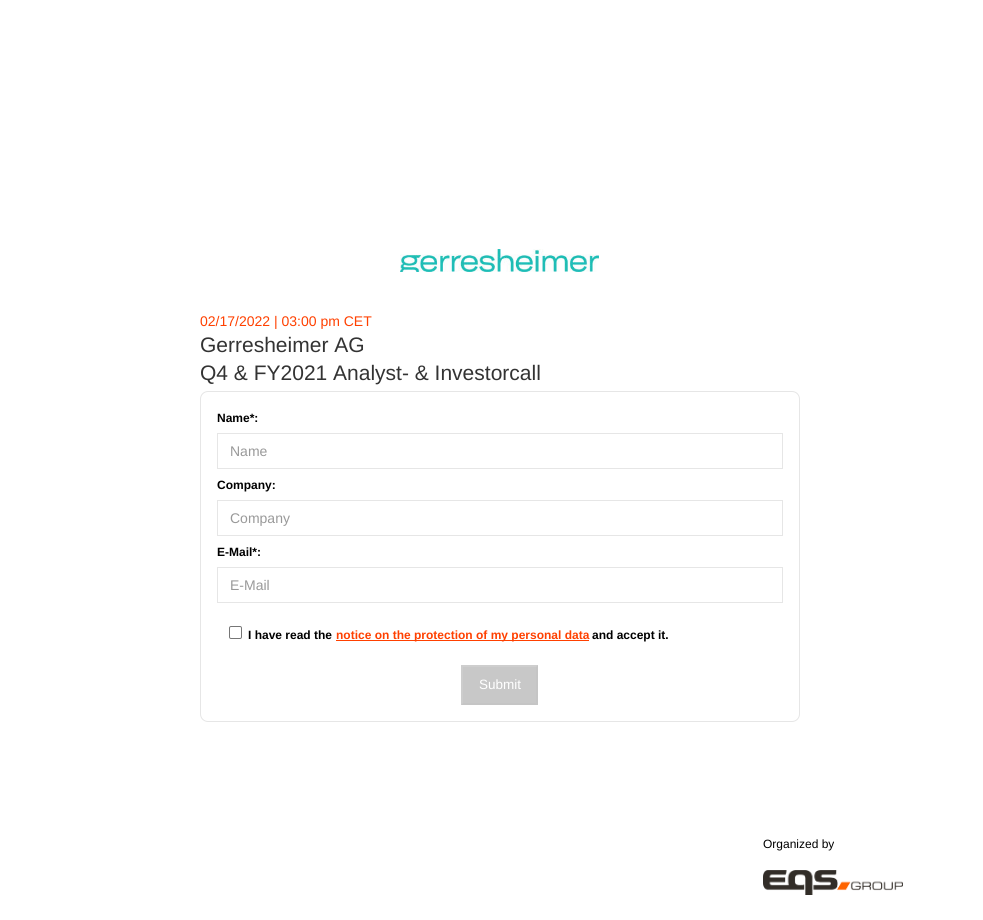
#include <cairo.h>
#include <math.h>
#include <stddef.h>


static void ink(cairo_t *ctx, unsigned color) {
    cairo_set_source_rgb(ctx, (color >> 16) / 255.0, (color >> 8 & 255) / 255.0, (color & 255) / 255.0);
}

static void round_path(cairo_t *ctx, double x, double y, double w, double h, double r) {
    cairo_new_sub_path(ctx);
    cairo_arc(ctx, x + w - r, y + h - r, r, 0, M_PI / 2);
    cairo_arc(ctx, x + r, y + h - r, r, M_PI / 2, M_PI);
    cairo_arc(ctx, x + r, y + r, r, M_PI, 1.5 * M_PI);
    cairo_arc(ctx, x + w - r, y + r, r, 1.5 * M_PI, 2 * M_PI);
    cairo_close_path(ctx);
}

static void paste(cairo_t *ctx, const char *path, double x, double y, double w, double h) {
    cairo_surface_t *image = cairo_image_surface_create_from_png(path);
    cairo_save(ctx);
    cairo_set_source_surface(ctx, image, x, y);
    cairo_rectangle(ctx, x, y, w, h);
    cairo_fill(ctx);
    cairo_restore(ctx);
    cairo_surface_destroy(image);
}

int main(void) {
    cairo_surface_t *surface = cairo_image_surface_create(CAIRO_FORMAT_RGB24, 983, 920);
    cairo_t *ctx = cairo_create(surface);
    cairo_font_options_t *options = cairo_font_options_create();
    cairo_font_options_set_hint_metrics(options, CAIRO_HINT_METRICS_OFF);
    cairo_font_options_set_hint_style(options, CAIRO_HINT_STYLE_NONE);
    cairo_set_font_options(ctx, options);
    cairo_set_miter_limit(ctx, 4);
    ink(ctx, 0xFFFFFF);
    cairo_paint(ctx);
    paste(ctx, "media/1.png", 400, 249, 199, 23);
    cairo_select_font_face(ctx, "Liberation Sans", CAIRO_FONT_SLANT_NORMAL, CAIRO_FONT_WEIGHT_NORMAL);
    cairo_set_font_size(ctx, 14);
    ink(ctx, 0xFF4000);
    cairo_move_to(ctx, 200, 326);
    cairo_show_text(ctx, "02/17/2022 | 03:00 pm CET");
    cairo_set_font_size(ctx, 21);
    ink(ctx, 0x333333);
    cairo_move_to(ctx, 200, 352);
    cairo_show_text(ctx, "Gerresheimer AG");
    cairo_move_to(ctx, 200, 380);
    cairo_show_text(ctx, "Q4 & FY2021 Analyst- & Investorcall");
    round_path(ctx, 200.5, 391.5, 599, 330, 7.5);
    ink(ctx, 0xE6E6E6);
    cairo_set_line_width(ctx, 1);
    cairo_stroke(ctx);
    cairo_select_font_face(ctx, "Liberation Sans", CAIRO_FONT_SLANT_NORMAL, CAIRO_FONT_WEIGHT_BOLD);
    cairo_set_font_size(ctx, 12);
    ink(ctx, 0x000000);
    cairo_move_to(ctx, 217, 422);
    cairo_show_text(ctx, "Name*:");
    cairo_rectangle(ctx, 217.5, 433.5, 565, 35);
    ink(ctx, 0xE6E6E6);
    cairo_stroke(ctx);
    cairo_select_font_face(ctx, "Liberation Sans", CAIRO_FONT_SLANT_NORMAL, CAIRO_FONT_WEIGHT_NORMAL);
    cairo_set_font_size(ctx, 14);
    ink(ctx, 0x999999);
    cairo_move_to(ctx, 230, 456);
    cairo_show_text(ctx, "Name");
    cairo_select_font_face(ctx, "Liberation Sans", CAIRO_FONT_SLANT_NORMAL, CAIRO_FONT_WEIGHT_BOLD);
    cairo_set_font_size(ctx, 12);
    ink(ctx, 0x000000);
    cairo_move_to(ctx, 217, 489);
    cairo_show_text(ctx, "Company:");
    cairo_rectangle(ctx, 217.5, 500.5, 565, 35);
    ink(ctx, 0xE6E6E6);
    cairo_stroke(ctx);
    cairo_select_font_face(ctx, "Liberation Sans", CAIRO_FONT_SLANT_NORMAL, CAIRO_FONT_WEIGHT_NORMAL);
    cairo_set_font_size(ctx, 14);
    ink(ctx, 0x999999);
    cairo_move_to(ctx, 230, 523);
    cairo_show_text(ctx, "Company");
    cairo_select_font_face(ctx, "Liberation Sans", CAIRO_FONT_SLANT_NORMAL, CAIRO_FONT_WEIGHT_BOLD);
    cairo_set_font_size(ctx, 12);
    ink(ctx, 0x000000);
    cairo_move_to(ctx, 217, 556);
    cairo_show_text(ctx, "E-Mail*:");
    cairo_rectangle(ctx, 217.5, 567.5, 565, 35);
    ink(ctx, 0xE6E6E6);
    cairo_stroke(ctx);
    cairo_select_font_face(ctx, "Liberation Sans", CAIRO_FONT_SLANT_NORMAL, CAIRO_FONT_WEIGHT_NORMAL);
    cairo_set_font_size(ctx, 14);
    ink(ctx, 0x999999);
    cairo_move_to(ctx, 230, 590);
    cairo_show_text(ctx, "E-Mail");
    round_path(ctx, 229.5, 626.5, 12, 12, 1.5);
    ink(ctx, 0x767676);
    cairo_stroke(ctx);
    cairo_select_font_face(ctx, "Liberation Sans", CAIRO_FONT_SLANT_NORMAL, CAIRO_FONT_WEIGHT_BOLD);
    cairo_set_font_size(ctx, 12);
    ink(ctx, 0x000000);
    cairo_move_to(ctx, 248, 639);
    cairo_show_text(ctx, "I have read the");
    ink(ctx, 0xFF4000);
    cairo_rectangle(ctx, 336, 640, 253, 1);
    cairo_fill(ctx);
    cairo_move_to(ctx, 336, 639);
    cairo_show_text(ctx, "notice on the protection of my personal data");
    ink(ctx, 0x000000);
    cairo_move_to(ctx, 592, 639);
    cairo_show_text(ctx, "and accept it.");
    ink(ctx, 0xC8C8C8);
    cairo_rectangle(ctx, 461, 665, 77, 40);
    cairo_fill(ctx);
    ink(ctx, 0xCECECE);
    cairo_new_path(ctx);
    cairo_move_to(ctx, 461, 665);
    cairo_line_to(ctx, 538, 665);
    cairo_line_to(ctx, 536, 667);
    cairo_line_to(ctx, 463, 667);
    cairo_close_path(ctx);
    cairo_fill(ctx);
    cairo_set_source_rgba(ctx, 0.667, 0.667, 0.667, 0.1);
    cairo_new_path(ctx);
    cairo_move_to(ctx, 538, 665);
    cairo_line_to(ctx, 538, 705);
    cairo_line_to(ctx, 536, 703);
    cairo_line_to(ctx, 536, 667);
    cairo_close_path(ctx);
    cairo_fill(ctx);
    ink(ctx, 0xC5C5C5);
    cairo_new_path(ctx);
    cairo_move_to(ctx, 538, 705);
    cairo_line_to(ctx, 461, 705);
    cairo_line_to(ctx, 463, 703);
    cairo_line_to(ctx, 536, 703);
    cairo_close_path(ctx);
    cairo_fill(ctx);
    cairo_set_source_rgba(ctx, 1, 1, 1, 0.1);
    cairo_new_path(ctx);
    cairo_move_to(ctx, 461, 705);
    cairo_line_to(ctx, 461, 665);
    cairo_line_to(ctx, 463, 667);
    cairo_line_to(ctx, 463, 703);
    cairo_close_path(ctx);
    cairo_fill(ctx);
    cairo_select_font_face(ctx, "Liberation Sans", CAIRO_FONT_SLANT_NORMAL, CAIRO_FONT_WEIGHT_NORMAL);
    cairo_set_font_size(ctx, 13.5);
    ink(ctx, 0xFFFFFF);
    cairo_move_to(ctx, 479, 689);
    cairo_show_text(ctx, "Submit");
    cairo_set_font_size(ctx, 12);
    ink(ctx, 0x000000);
    cairo_move_to(ctx, 763, 848);
    cairo_show_text(ctx, "Organized by");
    paste(ctx, "media/2.png", 763, 870, 140, 25);
    cairo_surface_write_to_png(surface, "image.png");
    cairo_font_options_destroy(options);
    cairo_destroy(ctx);
    cairo_surface_destroy(surface);
    return 0;
}
